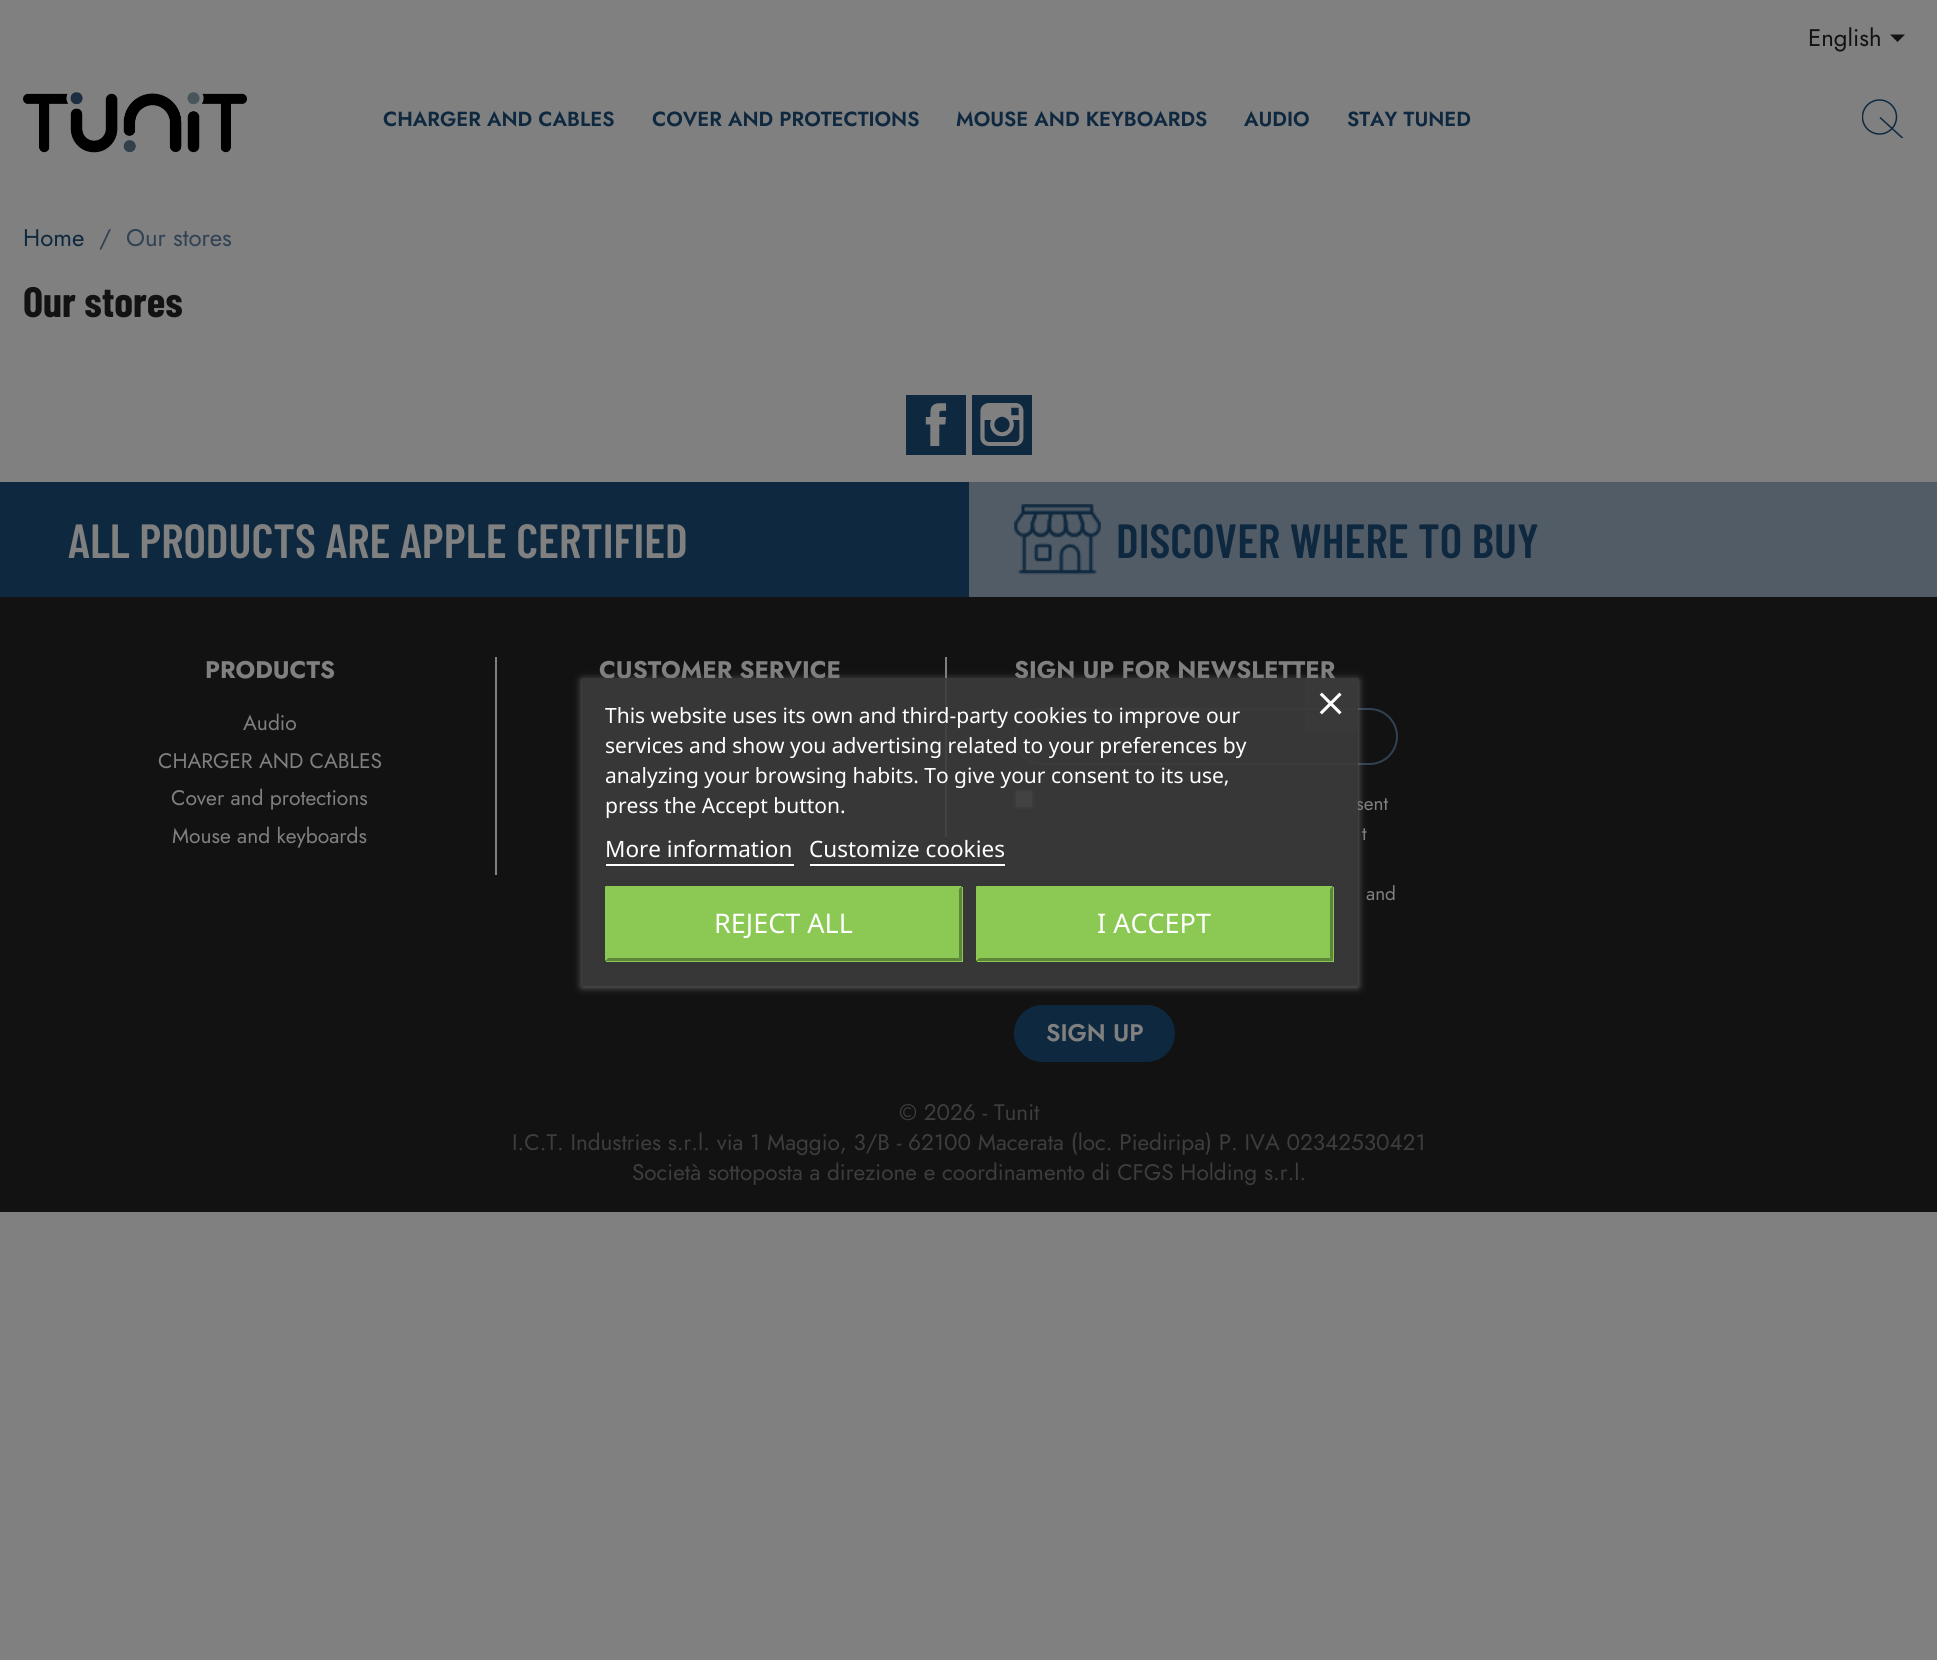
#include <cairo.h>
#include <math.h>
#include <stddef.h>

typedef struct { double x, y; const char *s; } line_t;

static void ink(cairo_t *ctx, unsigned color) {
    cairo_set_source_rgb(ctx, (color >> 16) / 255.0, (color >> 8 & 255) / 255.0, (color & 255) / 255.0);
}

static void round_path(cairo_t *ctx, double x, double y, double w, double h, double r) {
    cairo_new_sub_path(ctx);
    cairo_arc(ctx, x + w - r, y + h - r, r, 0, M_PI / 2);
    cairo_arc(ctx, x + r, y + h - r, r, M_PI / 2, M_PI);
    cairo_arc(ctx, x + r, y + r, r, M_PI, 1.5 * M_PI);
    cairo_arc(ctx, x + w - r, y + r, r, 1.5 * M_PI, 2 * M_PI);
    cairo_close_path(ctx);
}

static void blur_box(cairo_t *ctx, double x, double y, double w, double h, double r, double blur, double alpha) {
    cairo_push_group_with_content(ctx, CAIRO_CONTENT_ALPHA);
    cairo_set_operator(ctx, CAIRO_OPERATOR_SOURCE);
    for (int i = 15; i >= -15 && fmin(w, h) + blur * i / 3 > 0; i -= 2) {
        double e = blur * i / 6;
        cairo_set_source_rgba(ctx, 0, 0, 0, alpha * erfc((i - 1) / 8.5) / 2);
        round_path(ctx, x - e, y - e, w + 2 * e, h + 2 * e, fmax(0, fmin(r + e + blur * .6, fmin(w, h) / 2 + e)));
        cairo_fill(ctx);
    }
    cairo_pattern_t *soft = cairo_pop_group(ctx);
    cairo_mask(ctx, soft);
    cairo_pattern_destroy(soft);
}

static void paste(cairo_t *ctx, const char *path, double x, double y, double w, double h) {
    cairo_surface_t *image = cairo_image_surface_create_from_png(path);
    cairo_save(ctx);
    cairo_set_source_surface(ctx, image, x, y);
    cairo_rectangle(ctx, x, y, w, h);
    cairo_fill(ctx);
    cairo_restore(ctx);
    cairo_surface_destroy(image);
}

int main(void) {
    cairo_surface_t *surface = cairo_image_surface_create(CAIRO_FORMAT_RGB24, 1937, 1660);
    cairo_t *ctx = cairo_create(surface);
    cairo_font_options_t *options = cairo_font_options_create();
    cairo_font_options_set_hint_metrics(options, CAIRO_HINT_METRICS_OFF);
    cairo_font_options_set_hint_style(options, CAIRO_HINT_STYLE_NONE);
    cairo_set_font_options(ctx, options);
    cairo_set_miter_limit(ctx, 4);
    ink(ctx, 0x808080);
    cairo_paint(ctx);
    cairo_select_font_face(ctx, "Jost", CAIRO_FONT_SLANT_NORMAL, CAIRO_FONT_WEIGHT_NORMAL);
    cairo_set_font_size(ctx, 24);
    ink(ctx, 0x121212);
    cairo_move_to(ctx, 1808, 46);
    cairo_show_text(ctx, "English");
    cairo_new_path(ctx);
    cairo_move_to(ctx, 1890, 34.5);
    cairo_line_to(ctx, 1905, 34.5);
    cairo_line_to(ctx, 1897.5, 42);
    cairo_close_path(ctx);
    cairo_fill(ctx);
    paste(ctx, "media/1.png", 23, 92, 224, 61);
    cairo_select_font_face(ctx, "Jost SemiBold", CAIRO_FONT_SLANT_NORMAL, CAIRO_FONT_WEIGHT_NORMAL);
    cairo_set_font_size(ctx, 20.4);
    ink(ctx, 0x0E283F);
    {
        static const line_t items[] = {
            {383, 126, "CHARGER AND CABLES"},
            {652, 126, "COVER AND PROTECTIONS"},
            {956, 126, "MOUSE AND KEYBOARDS"},
            {1244, 126, "AUDIO"},
            {1347, 126, "STAY TUNED"},
        };
        for (size_t i = 0; i < sizeof items / sizeof *items; i++) {
            cairo_move_to(ctx, items[i].x, items[i].y);
            cairo_show_text(ctx, items[i].s);
        }
    }
    cairo_save(ctx);
    cairo_rectangle(ctx, 1862, 99, 42, 39);
    cairo_clip(ctx);
    cairo_arc(ctx, 1879.5, 117, 17, 0, 2 * M_PI);
    cairo_set_line_width(ctx, 1.5);
    cairo_stroke(ctx);
    cairo_new_path(ctx);
    cairo_move_to(ctx, 1880, 117.5);
    cairo_line_to(ctx, 1903, 138.5);
    cairo_stroke(ctx);
    cairo_restore(ctx);
    cairo_select_font_face(ctx, "Jost", CAIRO_FONT_SLANT_NORMAL, CAIRO_FONT_WEIGHT_NORMAL);
    cairo_set_font_size(ctx, 24);
    cairo_move_to(ctx, 23, 246);
    cairo_show_text(ctx, "Home");
    ink(ctx, 0x304253);
    cairo_move_to(ctx, 99, 246);
    cairo_show_text(ctx, "/");
    cairo_move_to(ctx, 126, 246);
    cairo_show_text(ctx, "Our stores");
    cairo_select_font_face(ctx, "Barlow Condensed", CAIRO_FONT_SLANT_NORMAL, CAIRO_FONT_WEIGHT_BOLD);
    cairo_set_font_size(ctx, 42.5);
    ink(ctx, 0x121212);
    cairo_move_to(ctx, 23, 317);
    cairo_show_text(ctx, "Our stores");
    ink(ctx, 0x0E283F);
    cairo_rectangle(ctx, 906, 395, 60, 60);
    cairo_fill(ctx);
    paste(ctx, "media/2.png", 925, 403, 22, 43);
    cairo_rectangle(ctx, 972, 395, 60, 60);
    cairo_fill(ctx);
    paste(ctx, "media/3.png", 980, 403, 44, 43);
    cairo_rectangle(ctx, 0, 482, 969, 115);
    cairo_fill(ctx);
    ink(ctx, 0x525C66);
    cairo_rectangle(ctx, 969, 482, 968, 115);
    cairo_fill(ctx);
    cairo_select_font_face(ctx, "Barlow Condensed SemiBold", CAIRO_FONT_SLANT_NORMAL, CAIRO_FONT_WEIGHT_NORMAL);
    cairo_set_font_size(ctx, 48);
    ink(ctx, 0x808080);
    cairo_move_to(ctx, 68, 558);
    cairo_show_text(ctx, "ALL PRODUCTS ARE APPLE CERTIFIED");
    paste(ctx, "media/4.png", 1014, 504, 87, 71);
    ink(ctx, 0x0E283F);
    cairo_move_to(ctx, 1116, 558);
    cairo_show_text(ctx, "DISCOVER WHERE TO BUY");
    ink(ctx, 0x121212);
    cairo_rectangle(ctx, 0, 597, 1937, 615);
    cairo_fill(ctx);
    ink(ctx, 0x808080);
    cairo_rectangle(ctx, 495, 657, 2, 218);
    cairo_fill(ctx);
    cairo_select_font_face(ctx, "Jost", CAIRO_FONT_SLANT_NORMAL, CAIRO_FONT_WEIGHT_BOLD);
    cairo_set_font_size(ctx, 24);
    cairo_move_to(ctx, 205, 678);
    cairo_show_text(ctx, "PRODUCTS");
    cairo_select_font_face(ctx, "Jost", CAIRO_FONT_SLANT_NORMAL, CAIRO_FONT_WEIGHT_NORMAL);
    cairo_set_font_size(ctx, 21);
    {
        static const line_t items[] = {
            {243, 730, "Audio"},
            {158, 768, "CHARGER AND CABLES"},
            {171, 805, "Cover and protections"},
            {172, 843, "Mouse and keyboards"},
        };
        for (size_t i = 0; i < sizeof items / sizeof *items; i++) {
            cairo_move_to(ctx, items[i].x, items[i].y);
            cairo_show_text(ctx, items[i].s);
        }
    }
    cairo_rectangle(ctx, 945, 657, 2, 180);
    cairo_fill(ctx);
    cairo_select_font_face(ctx, "Jost", CAIRO_FONT_SLANT_NORMAL, CAIRO_FONT_WEIGHT_BOLD);
    cairo_set_font_size(ctx, 24);
    cairo_move_to(ctx, 599, 678);
    cairo_show_text(ctx, "CUSTOMER SERVICE");
    cairo_move_to(ctx, 1014, 678);
    cairo_show_text(ctx, "SIGN UP FOR NEWSLETTER");
    round_path(ctx, 1015, 709, 382, 55, 27.5);
    ink(ctx, 0x304253);
    cairo_stroke(ctx);
    ink(ctx, 0x808080);
    round_path(ctx, 1015, 790, 18, 18, 2);
    cairo_fill_preserve(ctx);
    ink(ctx, 0x3B3B3B);
    cairo_stroke(ctx);
    cairo_select_font_face(ctx, "Jost", CAIRO_FONT_SLANT_NORMAL, CAIRO_FONT_WEIGHT_NORMAL);
    cairo_set_font_size(ctx, 19);
    ink(ctx, 0x808080);
    {
        static const line_t items[] = {
            {1356, 810, "sent"},
            {1362, 840, "t"},
            {1366, 900, "and"},
        };
        for (size_t i = 0; i < sizeof items / sizeof *items; i++) {
            cairo_move_to(ctx, items[i].x, items[i].y);
            cairo_show_text(ctx, items[i].s);
        }
    }
    ink(ctx, 0x0E283F);
    round_path(ctx, 1014, 1005, 161, 57, 28.5);
    cairo_fill(ctx);
    cairo_select_font_face(ctx, "Jost SemiBold", CAIRO_FONT_SLANT_NORMAL, CAIRO_FONT_WEIGHT_NORMAL);
    cairo_set_font_size(ctx, 24);
    ink(ctx, 0x808080);
    cairo_move_to(ctx, 1046, 1041);
    cairo_show_text(ctx, "SIGN UP");
    cairo_save(ctx);
    cairo_set_fill_rule(ctx, CAIRO_FILL_RULE_EVEN_ODD);
    cairo_new_path(ctx);
    cairo_move_to(ctx, 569, 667);
    cairo_line_to(ctx, 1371, 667);
    cairo_line_to(ctx, 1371, 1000);
    cairo_line_to(ctx, 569, 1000);
    cairo_close_path(ctx);
    cairo_move_to(ctx, 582, 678);
    cairo_line_to(ctx, 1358, 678);
    cairo_line_to(ctx, 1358, 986);
    cairo_line_to(ctx, 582, 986);
    cairo_close_path(ctx);
    cairo_clip(ctx);
    ink(ctx, 0x707070);
    blur_box(ctx, 582, 680, 776, 307, 0, 4, 1);
    cairo_restore(ctx);
    cairo_set_source_rgba(ctx, 0.231, 0.231, 0.231, 0.9);
    cairo_rectangle(ctx, 582, 678, 776, 308);
    cairo_fill(ctx);
    cairo_select_font_face(ctx, "Noto Sans", CAIRO_FONT_SLANT_NORMAL, CAIRO_FONT_WEIGHT_NORMAL);
    cairo_set_font_size(ctx, 21);
    ink(ctx, 0xFFFFFF);
    {
        static const line_t items[] = {
            {605, 723, "This website uses its own and third-party cookies to improve our"},
            {605, 753, "services and show you advertising related to your preferences by"},
            {605, 783, "analyzing your browsing habits. To give your consent to its use,"},
            {605, 813, "press the Accept button."},
        };
        for (size_t i = 0; i < sizeof items / sizeof *items; i++) {
            cairo_move_to(ctx, items[i].x, items[i].y);
            cairo_show_text(ctx, items[i].s);
        }
    }
    cairo_set_font_size(ctx, 22.5);
    cairo_move_to(ctx, 605, 857);
    cairo_show_text(ctx, "More information");
    cairo_rectangle(ctx, 606, 864, 188, 2);
    cairo_fill(ctx);
    cairo_move_to(ctx, 809, 857);
    cairo_show_text(ctx, "Customize cookies");
    cairo_rectangle(ctx, 810, 864, 195, 2);
    cairo_fill(ctx);
    ink(ctx, 0x8BC954);
    cairo_rectangle(ctx, 606, 887, 357, 75);
    cairo_fill(ctx);
    cairo_new_path(ctx);
    cairo_move_to(ctx, 605, 886);
    cairo_line_to(ctx, 962, 886);
    cairo_line_to(ctx, 959, 889);
    cairo_line_to(ctx, 608, 889);
    cairo_close_path(ctx);
    cairo_fill(ctx);
    ink(ctx, 0x5D8638);
    cairo_new_path(ctx);
    cairo_move_to(ctx, 962, 886);
    cairo_line_to(ctx, 962, 961);
    cairo_line_to(ctx, 959, 958);
    cairo_line_to(ctx, 959, 889);
    cairo_close_path(ctx);
    cairo_fill(ctx);
    cairo_new_path(ctx);
    cairo_move_to(ctx, 962, 961);
    cairo_line_to(ctx, 605, 961);
    cairo_line_to(ctx, 608, 958);
    cairo_line_to(ctx, 959, 958);
    cairo_close_path(ctx);
    cairo_fill(ctx);
    ink(ctx, 0x8BC954);
    cairo_new_path(ctx);
    cairo_move_to(ctx, 605, 961);
    cairo_line_to(ctx, 605, 886);
    cairo_line_to(ctx, 608, 889);
    cairo_line_to(ctx, 608, 958);
    cairo_close_path(ctx);
    cairo_fill(ctx);
    cairo_set_font_size(ctx, 27);
    ink(ctx, 0xFFFFFF);
    cairo_move_to(ctx, 714, 933);
    cairo_show_text(ctx, "REJECT ALL");
    ink(ctx, 0x8BC954);
    cairo_rectangle(ctx, 977, 887, 357, 75);
    cairo_fill(ctx);
    cairo_new_path(ctx);
    cairo_move_to(ctx, 976, 886);
    cairo_line_to(ctx, 1333, 886);
    cairo_line_to(ctx, 1330, 889);
    cairo_line_to(ctx, 979, 889);
    cairo_close_path(ctx);
    cairo_fill(ctx);
    ink(ctx, 0x5D8638);
    cairo_new_path(ctx);
    cairo_move_to(ctx, 1333, 886);
    cairo_line_to(ctx, 1333, 961);
    cairo_line_to(ctx, 1330, 958);
    cairo_line_to(ctx, 1330, 889);
    cairo_close_path(ctx);
    cairo_fill(ctx);
    cairo_new_path(ctx);
    cairo_move_to(ctx, 1333, 961);
    cairo_line_to(ctx, 976, 961);
    cairo_line_to(ctx, 979, 958);
    cairo_line_to(ctx, 1330, 958);
    cairo_close_path(ctx);
    cairo_fill(ctx);
    ink(ctx, 0x8BC954);
    cairo_new_path(ctx);
    cairo_move_to(ctx, 976, 961);
    cairo_line_to(ctx, 976, 886);
    cairo_line_to(ctx, 979, 889);
    cairo_line_to(ctx, 979, 958);
    cairo_close_path(ctx);
    cairo_fill(ctx);
    ink(ctx, 0xFFFFFF);
    cairo_move_to(ctx, 1097, 933);
    cairo_show_text(ctx, "I ACCEPT");
    cairo_set_source_rgba(ctx, 0.231, 0.231, 0.231, 0.7);
    cairo_rectangle(ctx, 1305, 678, 53, 53);
    cairo_fill(ctx);
    paste(ctx, "media/5.png", 1319, 692, 23, 23);
    cairo_select_font_face(ctx, "Jost", CAIRO_FONT_SLANT_NORMAL, CAIRO_FONT_WEIGHT_NORMAL);
    cairo_set_font_size(ctx, 22.5);
    ink(ctx, 0x3D3D3D);
    {
        static const line_t items[] = {
            {899, 1120, "© 2026 - Tunit"},
            {512, 1150, "I.C.T. Industries s.r.l. via 1 Maggio, 3/B - 62100 Macerata (loc. Piediripa) P. IVA 02342530421"},
            {632, 1180, "Società sottoposta a direzione e coordinamento di CFGS Holding s.r.l."},
        };
        for (size_t i = 0; i < sizeof items / sizeof *items; i++) {
            cairo_move_to(ctx, items[i].x, items[i].y);
            cairo_show_text(ctx, items[i].s);
        }
    }
    cairo_surface_write_to_png(surface, "image.png");
    cairo_font_options_destroy(options);
    cairo_destroy(ctx);
    cairo_surface_destroy(surface);
    return 0;
}
